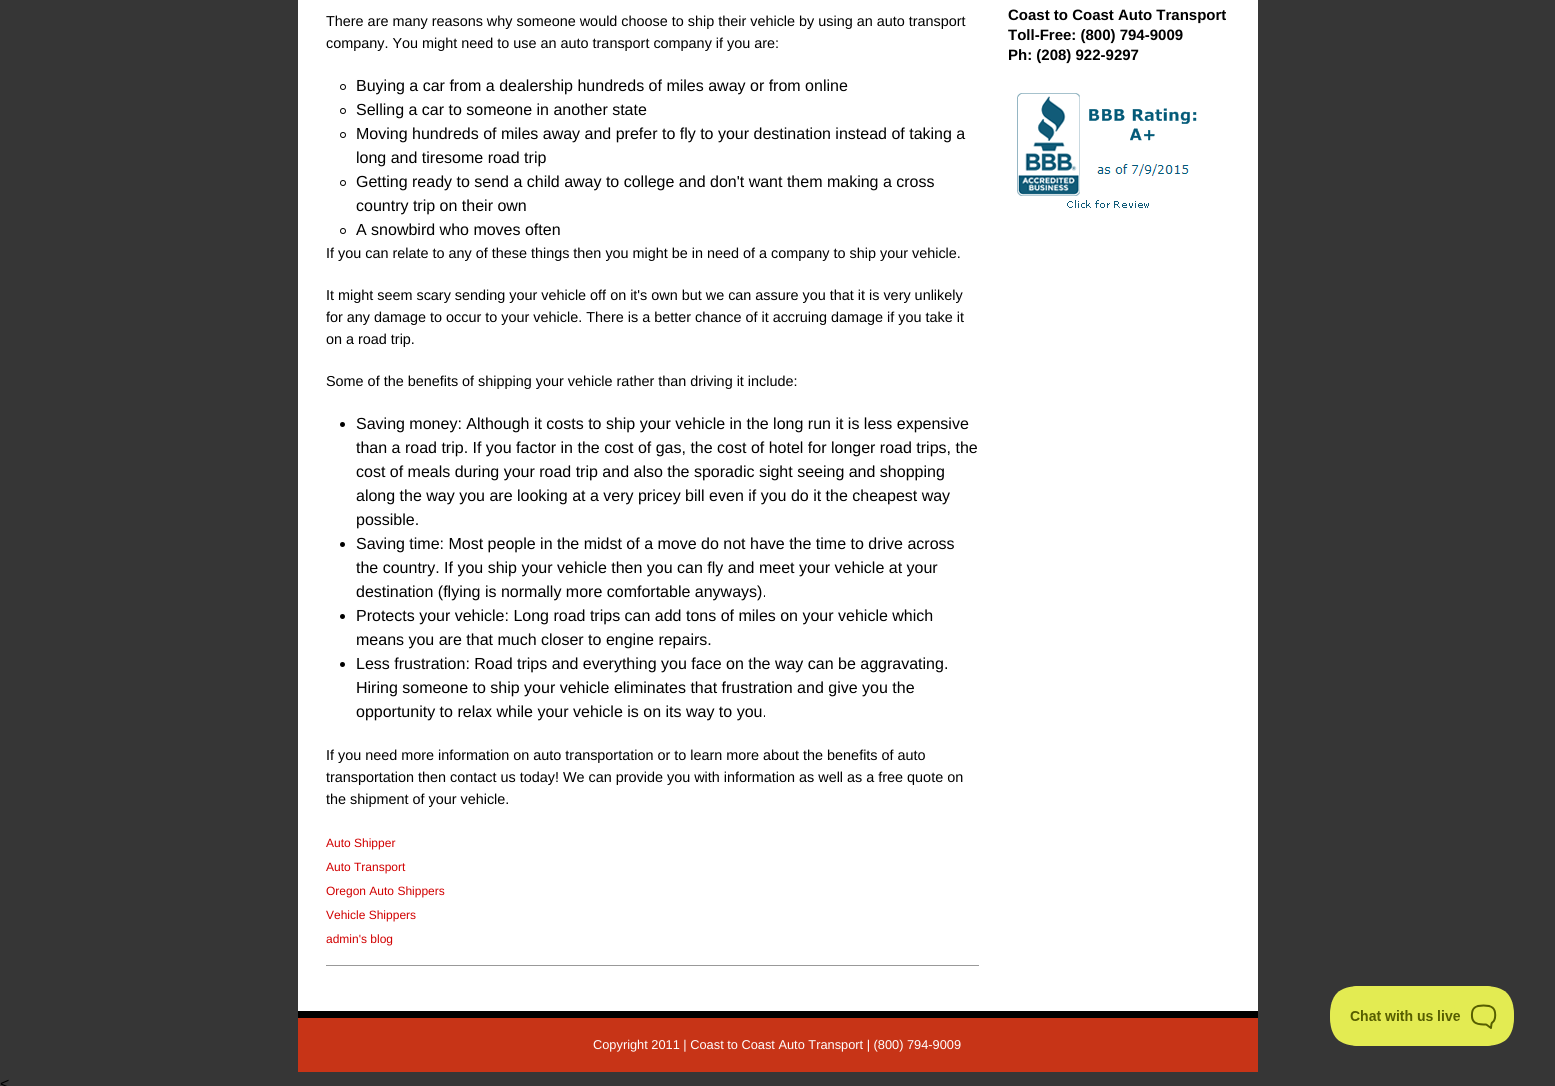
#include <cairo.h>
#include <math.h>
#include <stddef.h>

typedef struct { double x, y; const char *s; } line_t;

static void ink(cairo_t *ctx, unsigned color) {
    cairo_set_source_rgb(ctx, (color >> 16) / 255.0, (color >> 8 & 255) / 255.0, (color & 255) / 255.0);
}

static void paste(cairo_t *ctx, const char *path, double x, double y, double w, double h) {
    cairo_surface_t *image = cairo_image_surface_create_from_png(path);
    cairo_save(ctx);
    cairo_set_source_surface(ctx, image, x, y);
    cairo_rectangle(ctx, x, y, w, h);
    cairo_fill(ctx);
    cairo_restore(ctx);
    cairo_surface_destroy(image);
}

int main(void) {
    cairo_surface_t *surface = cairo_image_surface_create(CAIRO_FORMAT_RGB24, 1555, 1086);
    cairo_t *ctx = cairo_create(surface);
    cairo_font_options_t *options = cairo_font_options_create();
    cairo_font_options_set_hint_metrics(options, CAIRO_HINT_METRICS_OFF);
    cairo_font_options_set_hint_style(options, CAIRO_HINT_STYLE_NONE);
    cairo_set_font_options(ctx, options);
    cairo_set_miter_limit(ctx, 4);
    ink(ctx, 0x363636);
    cairo_paint(ctx);
    ink(ctx, 0xFFFFFF);
    cairo_rectangle(ctx, 298, 0, 960, 1011);
    cairo_fill(ctx);
    ink(ctx, 0x999999);
    cairo_rectangle(ctx, 326, 965, 653, 1);
    cairo_fill(ctx);
    cairo_select_font_face(ctx, "Liberation Sans", CAIRO_FONT_SLANT_NORMAL, CAIRO_FONT_WEIGHT_NORMAL);
    cairo_set_font_size(ctx, 14.4);
    ink(ctx, 0x000000);
    cairo_move_to(ctx, 326, 26);
    cairo_show_text(ctx, "There are many reasons why someone would choose to ship their vehicle by using an auto transport");
    cairo_move_to(ctx, 326, 48);
    cairo_show_text(ctx, "company. You might need to use an auto transport company if you are:");
    cairo_new_path(ctx);
    cairo_arc(ctx, 343, 87, 2.5, 0, 2 * M_PI);
    cairo_set_line_width(ctx, 1);
    cairo_stroke(ctx);
    cairo_set_font_size(ctx, 16);
    cairo_move_to(ctx, 356, 91);
    cairo_show_text(ctx, "Buying a car from a dealership hundreds of miles away or from online");
    cairo_new_path(ctx);
    cairo_arc(ctx, 343, 111, 2.5, 0, 2 * M_PI);
    cairo_stroke(ctx);
    cairo_move_to(ctx, 356, 115);
    cairo_show_text(ctx, "Selling a car to someone in another state");
    cairo_new_path(ctx);
    cairo_arc(ctx, 343, 135, 2.5, 0, 2 * M_PI);
    cairo_stroke(ctx);
    cairo_move_to(ctx, 356, 139);
    cairo_show_text(ctx, "Moving hundreds of miles away and prefer to fly to your destination instead of taking a");
    cairo_move_to(ctx, 356, 163);
    cairo_show_text(ctx, "long and tiresome road trip");
    cairo_new_path(ctx);
    cairo_arc(ctx, 343, 183, 2.5, 0, 2 * M_PI);
    cairo_stroke(ctx);
    cairo_move_to(ctx, 356, 187);
    cairo_show_text(ctx, "Getting ready to send a child away to college and don't want them making a cross");
    cairo_move_to(ctx, 356, 211);
    cairo_show_text(ctx, "country trip on their own");
    cairo_new_path(ctx);
    cairo_arc(ctx, 343, 231, 2.5, 0, 2 * M_PI);
    cairo_stroke(ctx);
    cairo_move_to(ctx, 356, 235);
    cairo_show_text(ctx, "A snowbird who moves often");
    cairo_set_font_size(ctx, 14.4);
    {
        static const line_t items[] = {
            {326, 258, "If you can relate to any of these things then you might be in need of a company to ship your vehicle."},
            {326, 300, "It might seem scary sending your vehicle off on it's own but we can assure you that it is very unlikely"},
            {326, 322, "for any damage to occur to your vehicle. There is a better chance of it accruing damage if you take it"},
            {326, 344, "on a road trip."},
            {326, 386, "Some of the benefits of shipping your vehicle rather than driving it include:"},
        };
        for (size_t i = 0; i < sizeof items / sizeof *items; i++) {
            cairo_move_to(ctx, items[i].x, items[i].y);
            cairo_show_text(ctx, items[i].s);
        }
    }
    cairo_new_path(ctx);
    cairo_arc(ctx, 342.5, 424.5, 2.5, 0, 2 * M_PI);
    cairo_fill(ctx);
    cairo_set_font_size(ctx, 16);
    {
        static const line_t items[] = {
            {356, 429, "Saving money: Although it costs to ship your vehicle in the long run it is less expensive"},
            {356, 453, "than a road trip. If you factor in the cost of gas, the cost of hotel for longer road trips, the"},
            {356, 477, "cost of meals during your road trip and also the sporadic sight seeing and shopping"},
            {356, 501, "along the way you are looking at a very pricey bill even if you do it the cheapest way"},
            {356, 525, "possible."},
        };
        for (size_t i = 0; i < sizeof items / sizeof *items; i++) {
            cairo_move_to(ctx, items[i].x, items[i].y);
            cairo_show_text(ctx, items[i].s);
        }
    }
    cairo_new_path(ctx);
    cairo_arc(ctx, 342.5, 544.5, 2.5, 0, 2 * M_PI);
    cairo_fill(ctx);
    {
        static const line_t items[] = {
            {356, 549, "Saving time: Most people in the midst of a move do not have the time to drive across"},
            {356, 573, "the country. If you ship your vehicle then you can fly and meet your vehicle at your"},
            {356, 597, "destination (flying is normally more comfortable anyways)."},
        };
        for (size_t i = 0; i < sizeof items / sizeof *items; i++) {
            cairo_move_to(ctx, items[i].x, items[i].y);
            cairo_show_text(ctx, items[i].s);
        }
    }
    cairo_new_path(ctx);
    cairo_arc(ctx, 342.5, 616.5, 2.5, 0, 2 * M_PI);
    cairo_fill(ctx);
    cairo_move_to(ctx, 356, 621);
    cairo_show_text(ctx, "Protects your vehicle: Long road trips can add tons of miles on your vehicle which");
    cairo_move_to(ctx, 356, 645);
    cairo_show_text(ctx, "means you are that much closer to engine repairs.");
    cairo_new_path(ctx);
    cairo_arc(ctx, 342.5, 664.5, 2.5, 0, 2 * M_PI);
    cairo_fill(ctx);
    {
        static const line_t items[] = {
            {356, 669, "Less frustration: Road trips and everything you face on the way can be aggravating."},
            {356, 693, "Hiring someone to ship your vehicle eliminates that frustration and give you the"},
            {356, 717, "opportunity to relax while your vehicle is on its way to you."},
        };
        for (size_t i = 0; i < sizeof items / sizeof *items; i++) {
            cairo_move_to(ctx, items[i].x, items[i].y);
            cairo_show_text(ctx, items[i].s);
        }
    }
    cairo_set_font_size(ctx, 14.4);
    {
        static const line_t items[] = {
            {326, 760, "If you need more information on auto transportation or to learn more about the benefits of auto"},
            {326, 782, "transportation then contact us today! We can provide you with information as well as a free quote on"},
            {326, 804, "the shipment of your vehicle."},
        };
        for (size_t i = 0; i < sizeof items / sizeof *items; i++) {
            cairo_move_to(ctx, items[i].x, items[i].y);
            cairo_show_text(ctx, items[i].s);
        }
    }
    cairo_set_font_size(ctx, 12);
    ink(ctx, 0xD10000);
    {
        static const line_t items[] = {
            {326, 847, "Auto Shipper"},
            {326, 871, "Auto Transport"},
            {326, 895, "Oregon Auto Shippers"},
            {326, 919, "Vehicle Shippers"},
            {326, 943, "admin's blog"},
        };
        for (size_t i = 0; i < sizeof items / sizeof *items; i++) {
            cairo_move_to(ctx, items[i].x, items[i].y);
            cairo_show_text(ctx, items[i].s);
        }
    }
    cairo_select_font_face(ctx, "Liberation Sans", CAIRO_FONT_SLANT_NORMAL, CAIRO_FONT_WEIGHT_BOLD);
    cairo_set_font_size(ctx, 15);
    ink(ctx, 0x000000);
    {
        static const line_t items[] = {
            {1008, 20, "Coast to Coast Auto Transport"},
            {1008, 40, "Toll-Free: (800) 794-9009"},
            {1008, 60, "Ph: (208) 922-9297"},
        };
        for (size_t i = 0; i < sizeof items / sizeof *items; i++) {
            cairo_move_to(ctx, items[i].x, items[i].y);
            cairo_show_text(ctx, items[i].s);
        }
    }
    paste(ctx, "media/1.png", 1017, 93, 180, 115);
    ink(ctx, 0xC73417);
    cairo_rectangle(ctx, 298, 1018, 960, 54);
    cairo_fill(ctx);
    ink(ctx, 0x000000);
    cairo_rectangle(ctx, 298, 1011, 960, 7);
    cairo_fill(ctx);
    cairo_select_font_face(ctx, "Liberation Sans", CAIRO_FONT_SLANT_NORMAL, CAIRO_FONT_WEIGHT_NORMAL);
    cairo_set_font_size(ctx, 12.8);
    ink(ctx, 0xFFFFFF);
    cairo_move_to(ctx, 593, 1049);
    cairo_show_text(ctx, "Copyright 2011 | Coast to Coast Auto Transport | (800) 794-9009");
    paste(ctx, "media/2.png", 1330, 986, 184, 60);
    cairo_set_font_size(ctx, 16);
    ink(ctx, 0x000000);
    cairo_move_to(ctx, 0, 1089);
    cairo_show_text(ctx, "<");
    cairo_surface_write_to_png(surface, "image.png");
    cairo_font_options_destroy(options);
    cairo_destroy(ctx);
    cairo_surface_destroy(surface);
    return 0;
}
